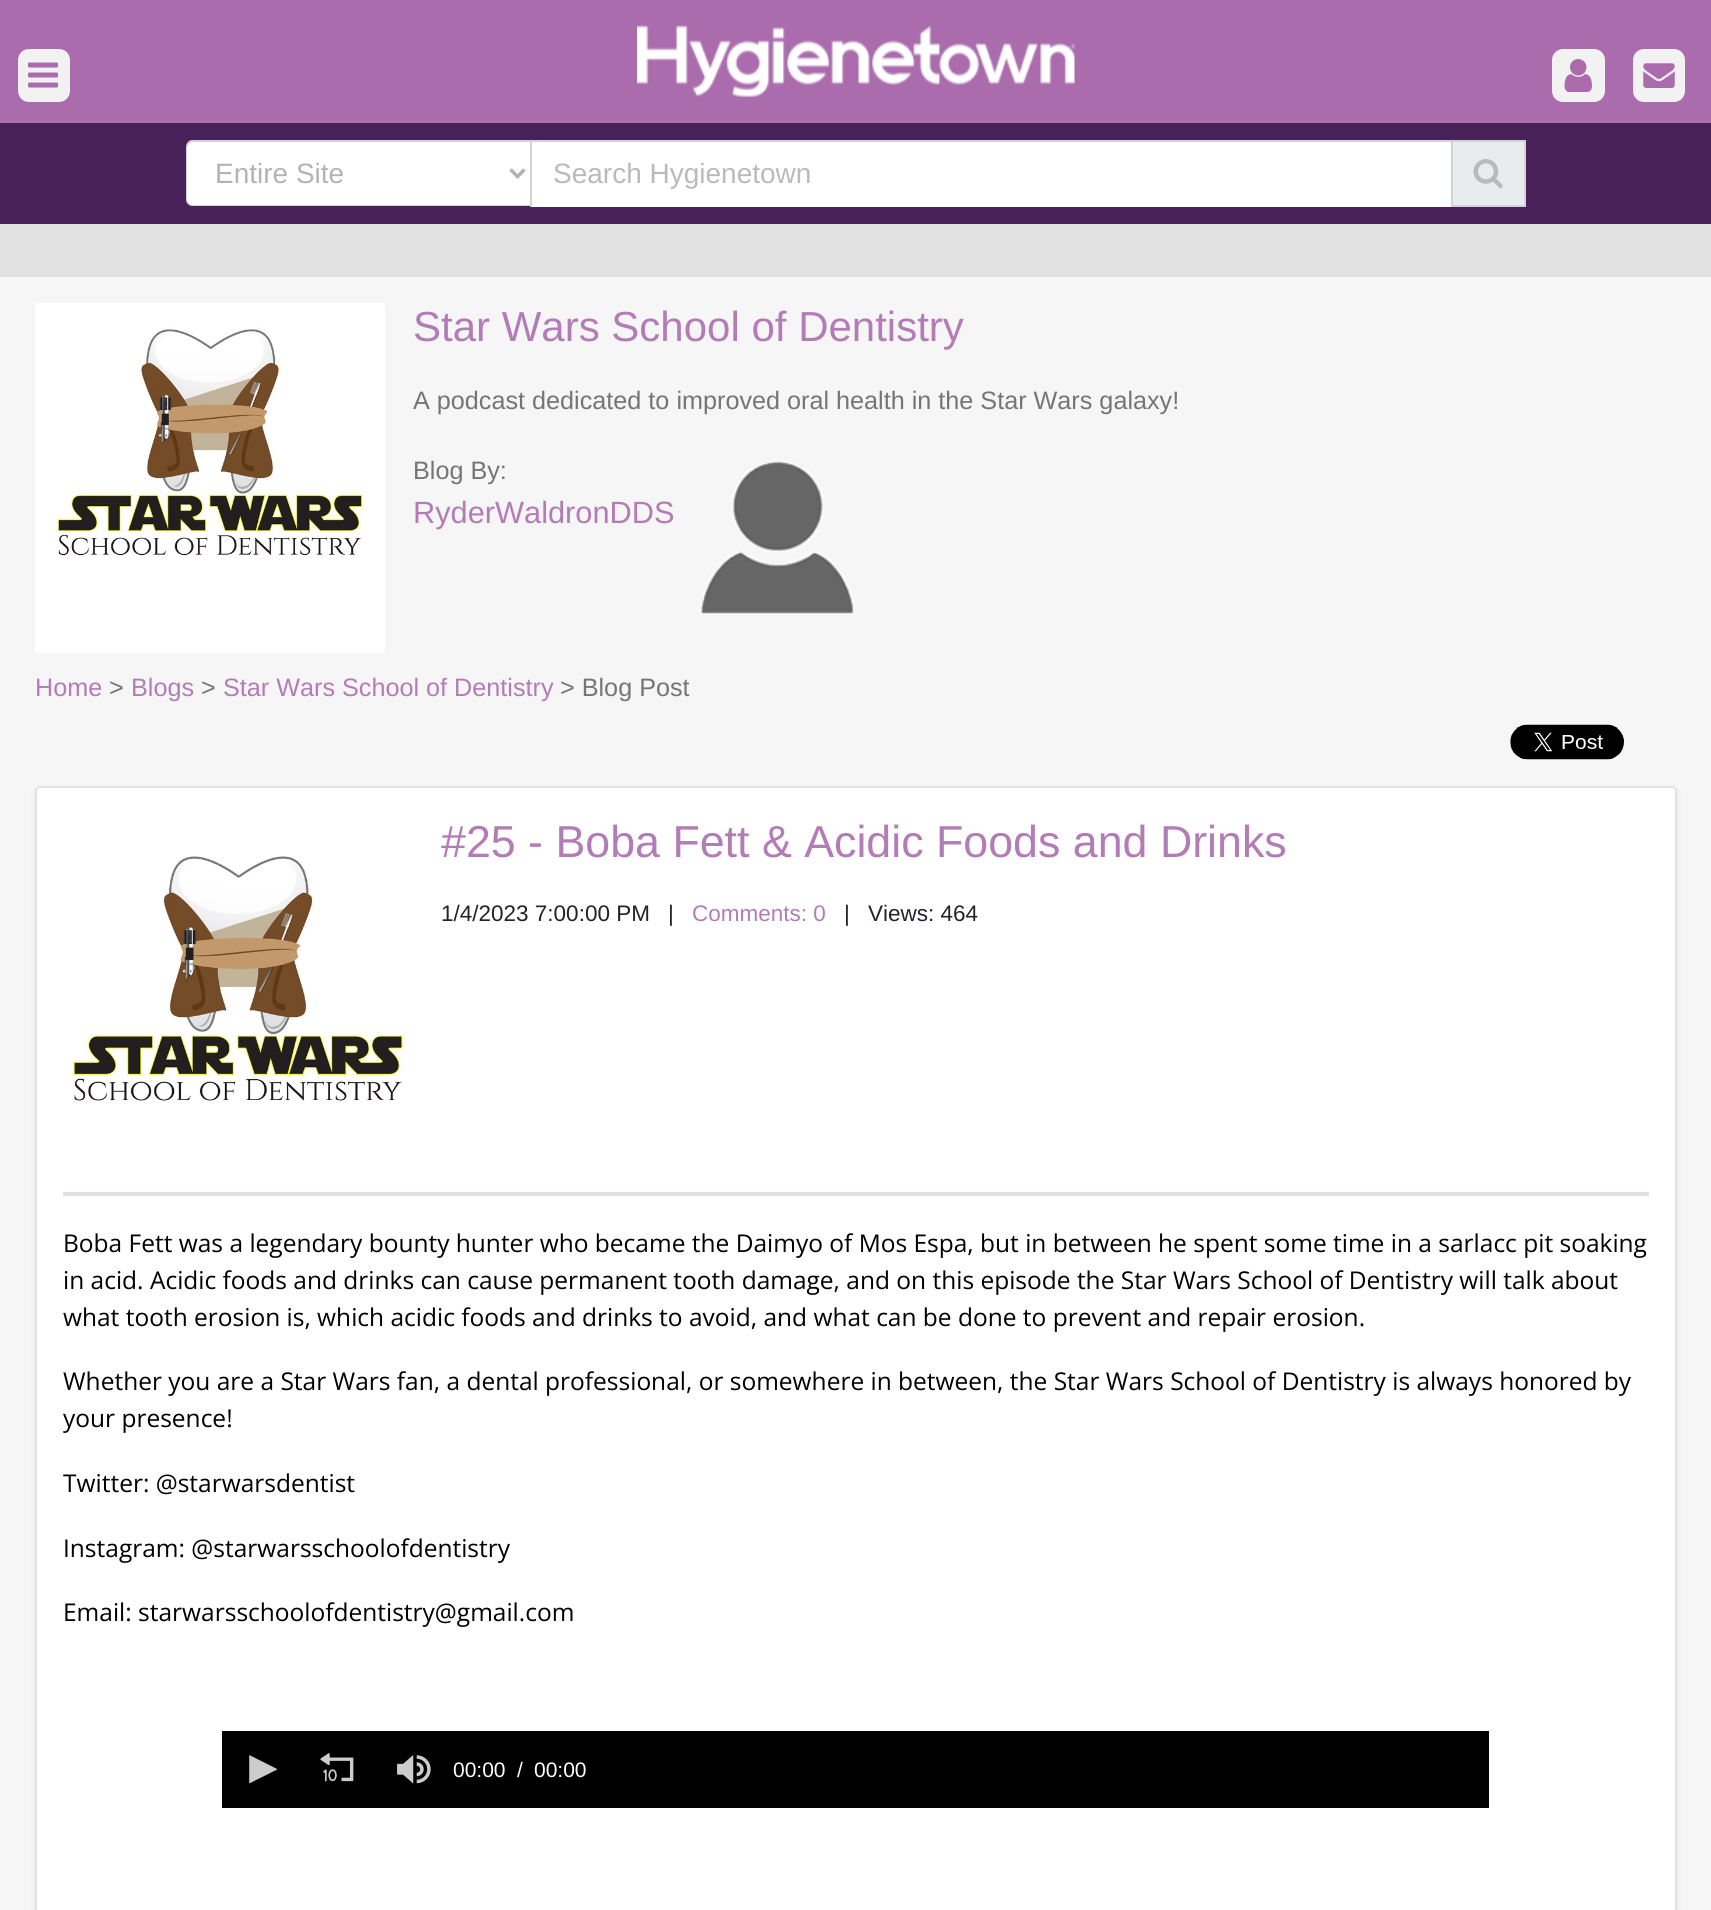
#include <cairo.h>
#include <math.h>
#include <stddef.h>

typedef struct { double x, y; const char *s; } line_t;

static void ink(cairo_t *ctx, unsigned color) {
    cairo_set_source_rgb(ctx, (color >> 16) / 255.0, (color >> 8 & 255) / 255.0, (color & 255) / 255.0);
}

static void round_path(cairo_t *ctx, double x, double y, double w, double h, double r) {
    cairo_new_sub_path(ctx);
    cairo_arc(ctx, x + w - r, y + h - r, r, 0, M_PI / 2);
    cairo_arc(ctx, x + r, y + h - r, r, M_PI / 2, M_PI);
    cairo_arc(ctx, x + r, y + r, r, M_PI, 1.5 * M_PI);
    cairo_arc(ctx, x + w - r, y + r, r, 1.5 * M_PI, 2 * M_PI);
    cairo_close_path(ctx);
}

static void blur_box(cairo_t *ctx, double x, double y, double w, double h, double r, double blur, double alpha) {
    cairo_push_group_with_content(ctx, CAIRO_CONTENT_ALPHA);
    cairo_set_operator(ctx, CAIRO_OPERATOR_SOURCE);
    for (int i = 15; i >= -15 && fmin(w, h) + blur * i / 3 > 0; i -= 2) {
        double e = blur * i / 6;
        cairo_set_source_rgba(ctx, 0, 0, 0, alpha * erfc((i - 1) / 8.5) / 2);
        round_path(ctx, x - e, y - e, w + 2 * e, h + 2 * e, fmax(0, fmin(r + e + blur * .6, fmin(w, h) / 2 + e)));
        cairo_fill(ctx);
    }
    cairo_pattern_t *soft = cairo_pop_group(ctx);
    cairo_mask(ctx, soft);
    cairo_pattern_destroy(soft);
}

static void paste(cairo_t *ctx, const char *path, double x, double y, double w, double h) {
    cairo_surface_t *image = cairo_image_surface_create_from_png(path);
    cairo_save(ctx);
    cairo_set_source_surface(ctx, image, x, y);
    cairo_rectangle(ctx, x, y, w, h);
    cairo_fill(ctx);
    cairo_restore(ctx);
    cairo_surface_destroy(image);
}

int main(void) {
    cairo_surface_t *surface = cairo_image_surface_create(CAIRO_FORMAT_RGB24, 1711, 1910);
    cairo_t *ctx = cairo_create(surface);
    cairo_font_options_t *options = cairo_font_options_create();
    cairo_font_options_set_hint_metrics(options, CAIRO_HINT_METRICS_OFF);
    cairo_font_options_set_hint_style(options, CAIRO_HINT_STYLE_NONE);
    cairo_set_font_options(ctx, options);
    cairo_set_miter_limit(ctx, 4);
    ink(ctx, 0xF6F6F6);
    cairo_paint(ctx);
    ink(ctx, 0xAA6CAD);
    cairo_rectangle(ctx, 0, 0, 1711, 123);
    cairo_fill(ctx);
    ink(ctx, 0xF2F2F2);
    round_path(ctx, 18, 49, 52, 53, 11);
    cairo_fill(ctx);
    paste(ctx, "media/1.png", 28, 62, 30, 26);
    paste(ctx, "media/2.png", 637, 25, 438, 72);
    round_path(ctx, 1552, 49, 53, 53, 11);
    cairo_fill(ctx);
    paste(ctx, "media/3.png", 1564, 59, 28, 33);
    round_path(ctx, 1633, 49, 52, 53, 11);
    cairo_fill(ctx);
    paste(ctx, "media/4.png", 1643, 63, 32, 25);
    ink(ctx, 0x492159);
    cairo_rectangle(ctx, 0, 123, 1711, 101);
    cairo_fill(ctx);
    ink(ctx, 0xFFFFFF);
    cairo_new_path(ctx);
    cairo_move_to(ctx, 192, 142);
    cairo_line_to(ctx, 532, 142);
    cairo_line_to(ctx, 532, 205);
    cairo_line_to(ctx, 192, 205);
    cairo_curve_to(ctx, 189, 205, 187, 203, 187, 200);
    cairo_line_to(ctx, 187, 147);
    cairo_curve_to(ctx, 187, 144, 189, 142, 192, 142);
    cairo_close_path(ctx);
    cairo_fill(ctx);
    ink(ctx, 0xCED4DA);
    cairo_set_fill_rule(ctx, CAIRO_FILL_RULE_EVEN_ODD);
    cairo_new_path(ctx);
    cairo_move_to(ctx, 192, 140);
    cairo_line_to(ctx, 532, 140);
    cairo_line_to(ctx, 532, 206);
    cairo_line_to(ctx, 192, 206);
    cairo_curve_to(ctx, 189, 206, 186, 203, 186, 200);
    cairo_line_to(ctx, 186, 147);
    cairo_curve_to(ctx, 186, 143, 189, 140, 192, 140);
    cairo_close_path(ctx);
    cairo_move_to(ctx, 192, 142);
    cairo_line_to(ctx, 532, 142);
    cairo_line_to(ctx, 532, 205);
    cairo_line_to(ctx, 192, 205);
    cairo_curve_to(ctx, 190, 205, 187, 202, 187, 200);
    cairo_line_to(ctx, 187, 147);
    cairo_curve_to(ctx, 187, 144, 190, 142, 192, 142);
    cairo_close_path(ctx);
    cairo_fill(ctx);
    cairo_new_path(ctx);
    cairo_move_to(ctx, 510.5, 169.5);
    cairo_line_to(ctx, 517.5, 176.5);
    cairo_line_to(ctx, 524.5, 169.5);
    ink(ctx, 0xB3B3B3);
    cairo_set_line_width(ctx, 3.5);
    cairo_stroke(ctx);
    cairo_select_font_face(ctx, "Liberation Sans", CAIRO_FONT_SLANT_NORMAL, CAIRO_FONT_WEIGHT_NORMAL);
    cairo_set_font_size(ctx, 28);
    cairo_move_to(ctx, 215, 183);
    cairo_show_text(ctx, "Entire Site");
    ink(ctx, 0xFFFFFF);
    cairo_rectangle(ctx, 532, 142, 919, 65);
    cairo_fill(ctx);
    ink(ctx, 0xE9ECEF);
    cairo_rectangle(ctx, 1452, 141, 73, 65);
    cairo_fill_preserve(ctx);
    ink(ctx, 0xCED4DA);
    cairo_set_line_width(ctx, 2);
    cairo_stroke(ctx);
    cairo_rectangle(ctx, 530, 140, 923, 2);
    cairo_fill(ctx);
    cairo_rectangle(ctx, 530, 140, 2, 67);
    cairo_fill(ctx);
    ink(ctx, 0xBABABA);
    cairo_move_to(ctx, 553, 183);
    cairo_show_text(ctx, "Search Hygienetown");
    paste(ctx, "media/5.png", 1473, 159, 30, 30);
    ink(ctx, 0xE1E1E1);
    cairo_rectangle(ctx, 0, 224, 1711, 53);
    cairo_fill(ctx);
    paste(ctx, "media/6.png", 35, 303, 350, 350);
    cairo_set_font_size(ctx, 42);
    ink(ctx, 0xB37CB6);
    cairo_move_to(ctx, 413, 341);
    cairo_show_text(ctx, "Star Wars School of Dentistry");
    cairo_set_font_size(ctx, 25.2);
    ink(ctx, 0x757575);
    cairo_move_to(ctx, 413, 409);
    cairo_show_text(ctx, "A podcast dedicated to improved oral health in the Star Wars galaxy!");
    cairo_move_to(ctx, 413, 479);
    cairo_show_text(ctx, "Blog By:");
    cairo_set_font_size(ctx, 30.75);
    ink(ctx, 0xB37CB6);
    cairo_move_to(ctx, 413, 523);
    cairo_show_text(ctx, "RyderWaldronDDS");
    paste(ctx, "media/7.png", 700, 460, 154, 155);
    cairo_set_font_size(ctx, 25.2);
    cairo_move_to(ctx, 35, 696);
    cairo_show_text(ctx, "Home");
    ink(ctx, 0x757575);
    cairo_move_to(ctx, 109, 696);
    cairo_show_text(ctx, ">");
    ink(ctx, 0xB37CB6);
    cairo_move_to(ctx, 131, 696);
    cairo_show_text(ctx, "Blogs");
    ink(ctx, 0x757575);
    cairo_move_to(ctx, 201, 696);
    cairo_show_text(ctx, ">");
    ink(ctx, 0xB37CB6);
    cairo_move_to(ctx, 223, 696);
    cairo_show_text(ctx, "Star Wars School of Dentistry");
    ink(ctx, 0x757575);
    cairo_move_to(ctx, 560, 696);
    cairo_show_text(ctx, "> Blog Post");
    paste(ctx, "media/8.png", 1510, 724, 114, 36);
    ink(ctx, 0x000000);
    blur_box(ctx, 35, 789, 1642, 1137, 5, 3.5, 0.06);
    ink(ctx, 0xFFFFFF);
    round_path(ctx, 36, 787, 1640, 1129, 4);
    cairo_fill_preserve(ctx);
    ink(ctx, 0xE1E1E1);
    cairo_stroke(ctx);
    paste(ctx, "media/9.png", 72, 856, 336, 247);
    cairo_set_font_size(ctx, 44.75);
    ink(ctx, 0xB37CB6);
    cairo_move_to(ctx, 441, 857);
    cairo_show_text(ctx, "#25 - Boba Fett & Acidic Foods and Drinks");
    cairo_set_font_size(ctx, 22.5);
    ink(ctx, 0x212529);
    cairo_move_to(ctx, 441, 921);
    cairo_show_text(ctx, "1/4/2023 7:00:00 PM");
    cairo_move_to(ctx, 668, 921);
    cairo_show_text(ctx, "|");
    ink(ctx, 0xB37CB6);
    cairo_move_to(ctx, 692, 921);
    cairo_show_text(ctx, "Comments: 0");
    ink(ctx, 0x212529);
    cairo_move_to(ctx, 844, 921);
    cairo_show_text(ctx, "|");
    cairo_move_to(ctx, 868, 921);
    cairo_show_text(ctx, "Views: 464");
    ink(ctx, 0xDEE2E6);
    cairo_rectangle(ctx, 63, 1192, 1586, 4);
    cairo_fill(ctx);
    cairo_select_font_face(ctx, "Open Sans", CAIRO_FONT_SLANT_NORMAL, CAIRO_FONT_WEIGHT_NORMAL);
    cairo_set_font_size(ctx, 24.5);
    ink(ctx, 0x000000);
    {
        static const line_t items[] = {
            {63, 1252, "Boba Fett was a legendary bounty hunter who became the Daimyo of Mos Espa, but in between he spent some time in a sarlacc pit soaking"},
            {63, 1289, "in acid. Acidic foods and drinks can cause permanent tooth damage, and on this episode the Star Wars School of Dentistry will talk about"},
            {63, 1326, "what tooth erosion is, which acidic foods and drinks to avoid, and what can be done to prevent and repair erosion."},
            {63, 1390, "Whether you are a Star Wars fan, a dental professional, or somewhere in between, the Star Wars School of Dentistry is always honored by"},
            {63, 1427, "your presence!"},
            {63, 1492, "Twitter: @starwarsdentist"},
            {63, 1557, "Instagram: @starwarsschoolofdentistry"},
            {63, 1621, "Email: starwarsschoolofdentistry@gmail.com"},
        };
        for (size_t i = 0; i < sizeof items / sizeof *items; i++) {
            cairo_move_to(ctx, items[i].x, items[i].y);
            cairo_show_text(ctx, items[i].s);
        }
    }
    cairo_rectangle(ctx, 222, 1731, 1267, 77);
    cairo_fill(ctx);
    paste(ctx, "media/10.png", 249, 1755, 29, 29);
    paste(ctx, "media/11.png", 320, 1753, 34, 29);
    paste(ctx, "media/12.png", 397, 1755, 34, 29);
    cairo_select_font_face(ctx, "Liberation Sans", CAIRO_FONT_SLANT_NORMAL, CAIRO_FONT_WEIGHT_NORMAL);
    cairo_set_font_size(ctx, 21);
    ink(ctx, 0xFFFFFF);
    {
        static const line_t items[] = {
            {453, 1777, "00:00"},
            {517, 1777, "/"},
            {534, 1777, "00:00"},
        };
        for (size_t i = 0; i < sizeof items / sizeof *items; i++) {
            cairo_move_to(ctx, items[i].x, items[i].y);
            cairo_show_text(ctx, items[i].s);
        }
    }
    cairo_surface_write_to_png(surface, "image.png");
    cairo_font_options_destroy(options);
    cairo_destroy(ctx);
    cairo_surface_destroy(surface);
    return 0;
}
